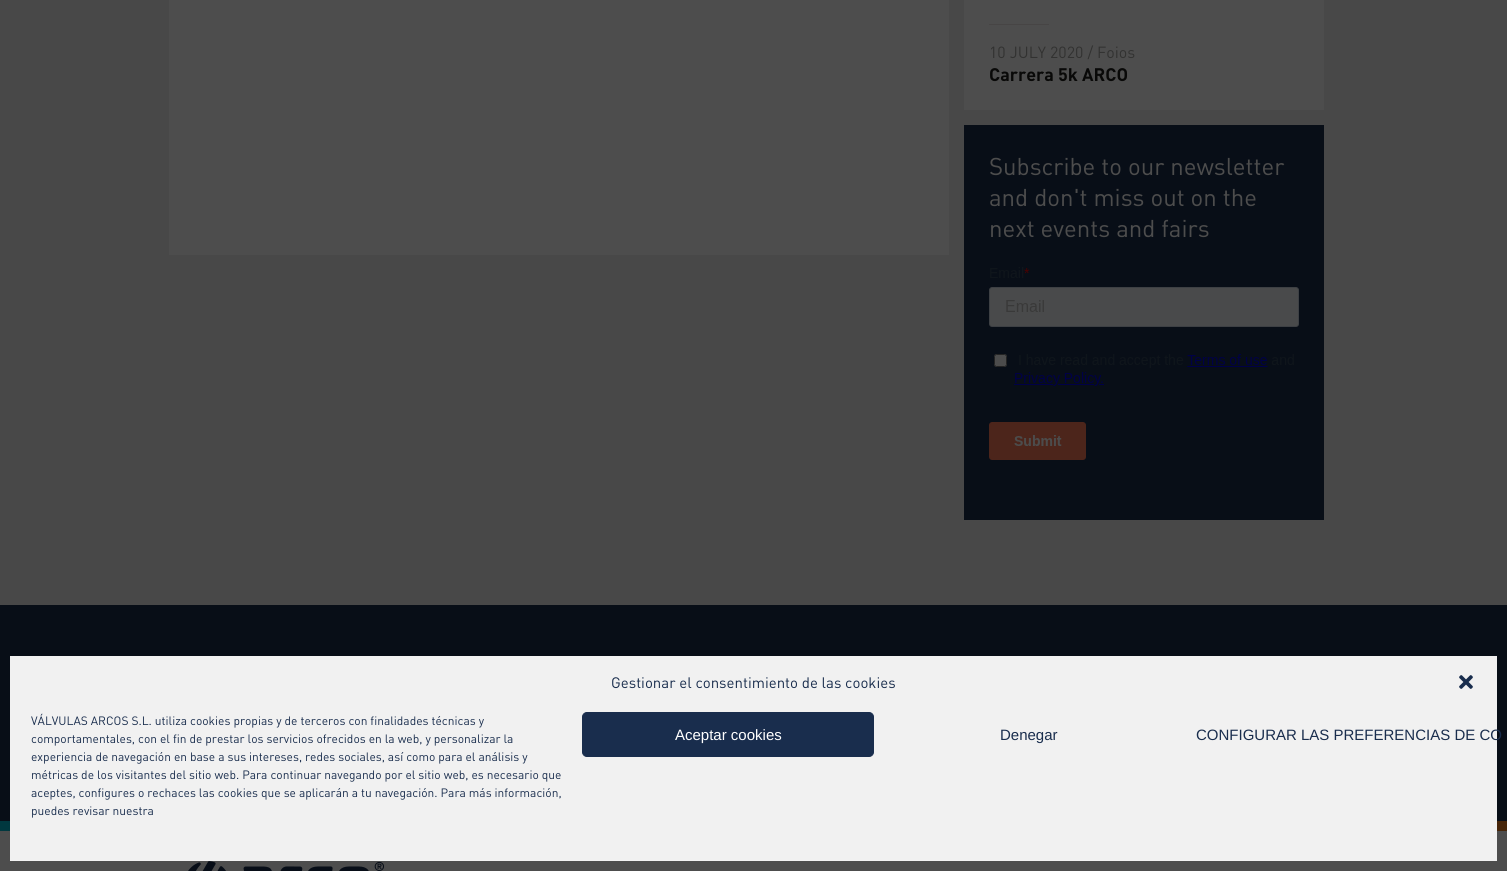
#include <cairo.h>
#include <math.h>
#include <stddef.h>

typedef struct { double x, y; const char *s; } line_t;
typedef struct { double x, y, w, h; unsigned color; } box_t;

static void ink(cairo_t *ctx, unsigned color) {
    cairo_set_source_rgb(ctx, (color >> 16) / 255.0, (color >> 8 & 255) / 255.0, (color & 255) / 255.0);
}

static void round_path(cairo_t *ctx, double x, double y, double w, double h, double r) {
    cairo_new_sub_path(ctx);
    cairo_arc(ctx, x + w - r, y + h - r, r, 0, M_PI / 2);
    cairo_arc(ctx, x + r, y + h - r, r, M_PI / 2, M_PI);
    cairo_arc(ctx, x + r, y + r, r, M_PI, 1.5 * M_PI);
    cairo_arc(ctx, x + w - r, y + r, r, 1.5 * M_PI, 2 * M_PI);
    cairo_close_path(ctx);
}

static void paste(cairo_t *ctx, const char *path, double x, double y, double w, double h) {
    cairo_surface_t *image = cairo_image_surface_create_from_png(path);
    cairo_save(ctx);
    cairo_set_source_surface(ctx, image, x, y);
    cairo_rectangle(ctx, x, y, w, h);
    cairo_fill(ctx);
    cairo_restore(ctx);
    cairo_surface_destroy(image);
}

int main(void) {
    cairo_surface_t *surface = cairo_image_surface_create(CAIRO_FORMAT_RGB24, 1507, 871);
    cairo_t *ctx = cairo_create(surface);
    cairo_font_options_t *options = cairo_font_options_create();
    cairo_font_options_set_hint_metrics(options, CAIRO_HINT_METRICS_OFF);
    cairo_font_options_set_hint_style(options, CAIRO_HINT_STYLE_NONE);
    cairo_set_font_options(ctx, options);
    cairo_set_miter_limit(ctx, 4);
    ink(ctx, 0x4D4D4D);
    cairo_paint(ctx);
    {
        static const box_t items[] = {
            {0, 0, 1507, 605, 0x484848},
            {169, 0, 780, 255, 0x4D4D4D},
            {964, 0, 360, 110, 0x4D4D4D},
            {989, 24, 60, 1, 0x474545},
        };
        for (size_t i = 0; i < sizeof items / sizeof *items; i++) {
            ink(ctx, items[i].color);
            cairo_rectangle(ctx, items[i].x, items[i].y, items[i].w, items[i].h);
            cairo_fill(ctx);
        }
    }
    cairo_select_font_face(ctx, "DIN", CAIRO_FONT_SLANT_NORMAL, CAIRO_FONT_WEIGHT_NORMAL);
    cairo_set_font_size(ctx, 16);
    ink(ctx, 0x323231);
    cairo_move_to(ctx, 989, 58);
    cairo_show_text(ctx, "10 JULY 2020 / Foios");
    cairo_select_font_face(ctx, "DIN", CAIRO_FONT_SLANT_NORMAL, CAIRO_FONT_WEIGHT_BOLD);
    cairo_set_font_size(ctx, 18);
    ink(ctx, 0x090908);
    cairo_move_to(ctx, 989, 81);
    cairo_show_text(ctx, "Carrera 5k ARCO");
    ink(ctx, 0x080E17);
    cairo_rectangle(ctx, 964, 125, 360, 395);
    cairo_fill(ctx);
    cairo_select_font_face(ctx, "DIN", CAIRO_FONT_SLANT_NORMAL, CAIRO_FONT_WEIGHT_NORMAL);
    cairo_set_font_size(ctx, 24);
    ink(ctx, 0x4D4D4D);
    {
        static const line_t items[] = {
            {989, 175, "Subscribe to our newsletter"},
            {989, 206, "and don't miss out on the"},
            {989, 237, "next events and fairs"},
        };
        for (size_t i = 0; i < sizeof items / sizeof *items; i++) {
            cairo_move_to(ctx, items[i].x, items[i].y);
            cairo_show_text(ctx, items[i].s);
        }
    }
    paste(ctx, "media/1.png", 989, 267, 310, 193);
    {
        static const box_t items[] = {
            {0, 605, 1507, 216, 0x080E17},
            {0, 821, 10, 10, 0x00383F},
            {1497, 821, 10, 10, 0x462509},
        };
        for (size_t i = 0; i < sizeof items / sizeof *items; i++) {
            ink(ctx, items[i].color);
            cairo_rectangle(ctx, items[i].x, items[i].y, items[i].w, items[i].h);
            cairo_fill(ctx);
        }
    }
    paste(ctx, "media/2.png", 188, 861, 196, 10);
    ink(ctx, 0xF1F1F1);
    cairo_rectangle(ctx, 10, 656, 1487, 205);
    cairo_fill(ctx);
    cairo_set_font_size(ctx, 15);
    ink(ctx, 0x192D4D);
    cairo_move_to(ctx, 611, 688);
    cairo_show_text(ctx, "Gestionar el consentimiento de las cookies");
    paste(ctx, "media/3.png", 1459, 675, 14, 14);
    cairo_set_font_size(ctx, 12);
    {
        static const line_t items[] = {
            {31, 725, "VÁLVULAS ARCOS S.L. utiliza cookies propias y de terceros con finalidades técnicas y"},
            {31, 743, "comportamentales, con el fin de prestar los servicios ofrecidos en la web, y personalizar la"},
            {31, 761, "experiencia de navegación en base a sus intereses, redes sociales, así como para el análisis y"},
            {31, 779, "métricas de los visitantes del sitio web. Para continuar navegando por el sitio web, es necesario que"},
            {31, 797, "aceptes, configures o rechaces las cookies que se aplicarán a tu navegación. Para más información,"},
            {31, 815, "puedes revisar nuestra"},
        };
        for (size_t i = 0; i < sizeof items / sizeof *items; i++) {
            cairo_move_to(ctx, items[i].x, items[i].y);
            cairo_show_text(ctx, items[i].s);
        }
    }
    round_path(ctx, 582.5, 712.5, 291, 44, 4.5);
    cairo_fill_preserve(ctx);
    cairo_set_line_width(ctx, 1);
    cairo_stroke(ctx);
    cairo_select_font_face(ctx, "Liberation Sans", CAIRO_FONT_SLANT_NORMAL, CAIRO_FONT_WEIGHT_NORMAL);
    cairo_set_font_size(ctx, 15);
    ink(ctx, 0xFFFFFF);
    cairo_move_to(ctx, 675, 740);
    cairo_show_text(ctx, "Aceptar cookies");
    ink(ctx, 0x192D4D);
    cairo_move_to(ctx, 1000, 740);
    cairo_show_text(ctx, "Denegar");
    cairo_move_to(ctx, 1196, 740);
    cairo_show_text(ctx, "CONFIGURAR LAS PREFERENCIAS DE CO");
    cairo_surface_write_to_png(surface, "image.png");
    cairo_font_options_destroy(options);
    cairo_destroy(ctx);
    cairo_surface_destroy(surface);
    return 0;
}
